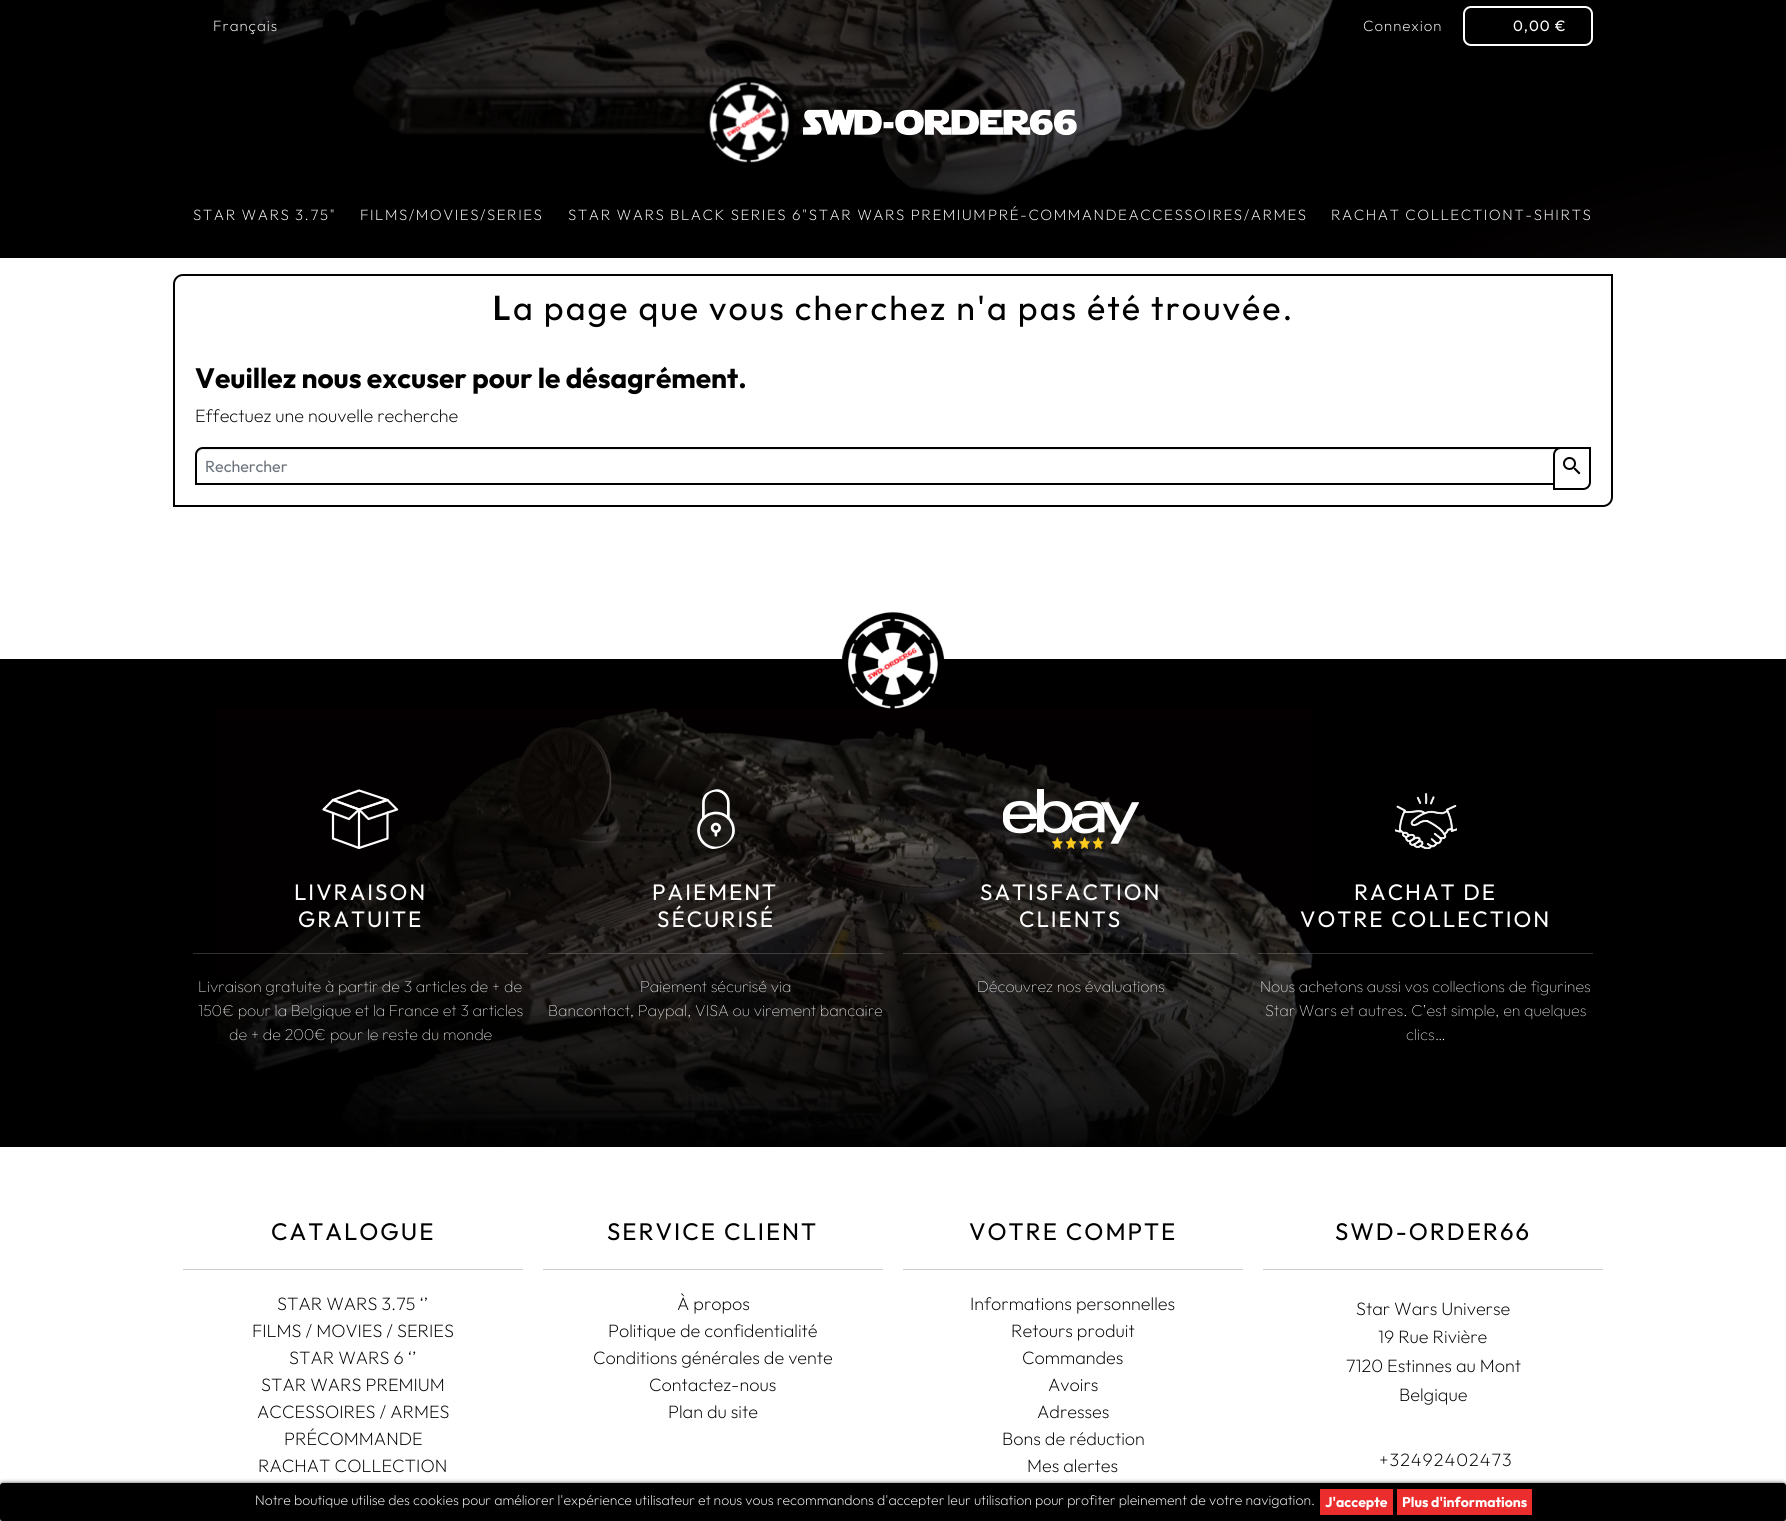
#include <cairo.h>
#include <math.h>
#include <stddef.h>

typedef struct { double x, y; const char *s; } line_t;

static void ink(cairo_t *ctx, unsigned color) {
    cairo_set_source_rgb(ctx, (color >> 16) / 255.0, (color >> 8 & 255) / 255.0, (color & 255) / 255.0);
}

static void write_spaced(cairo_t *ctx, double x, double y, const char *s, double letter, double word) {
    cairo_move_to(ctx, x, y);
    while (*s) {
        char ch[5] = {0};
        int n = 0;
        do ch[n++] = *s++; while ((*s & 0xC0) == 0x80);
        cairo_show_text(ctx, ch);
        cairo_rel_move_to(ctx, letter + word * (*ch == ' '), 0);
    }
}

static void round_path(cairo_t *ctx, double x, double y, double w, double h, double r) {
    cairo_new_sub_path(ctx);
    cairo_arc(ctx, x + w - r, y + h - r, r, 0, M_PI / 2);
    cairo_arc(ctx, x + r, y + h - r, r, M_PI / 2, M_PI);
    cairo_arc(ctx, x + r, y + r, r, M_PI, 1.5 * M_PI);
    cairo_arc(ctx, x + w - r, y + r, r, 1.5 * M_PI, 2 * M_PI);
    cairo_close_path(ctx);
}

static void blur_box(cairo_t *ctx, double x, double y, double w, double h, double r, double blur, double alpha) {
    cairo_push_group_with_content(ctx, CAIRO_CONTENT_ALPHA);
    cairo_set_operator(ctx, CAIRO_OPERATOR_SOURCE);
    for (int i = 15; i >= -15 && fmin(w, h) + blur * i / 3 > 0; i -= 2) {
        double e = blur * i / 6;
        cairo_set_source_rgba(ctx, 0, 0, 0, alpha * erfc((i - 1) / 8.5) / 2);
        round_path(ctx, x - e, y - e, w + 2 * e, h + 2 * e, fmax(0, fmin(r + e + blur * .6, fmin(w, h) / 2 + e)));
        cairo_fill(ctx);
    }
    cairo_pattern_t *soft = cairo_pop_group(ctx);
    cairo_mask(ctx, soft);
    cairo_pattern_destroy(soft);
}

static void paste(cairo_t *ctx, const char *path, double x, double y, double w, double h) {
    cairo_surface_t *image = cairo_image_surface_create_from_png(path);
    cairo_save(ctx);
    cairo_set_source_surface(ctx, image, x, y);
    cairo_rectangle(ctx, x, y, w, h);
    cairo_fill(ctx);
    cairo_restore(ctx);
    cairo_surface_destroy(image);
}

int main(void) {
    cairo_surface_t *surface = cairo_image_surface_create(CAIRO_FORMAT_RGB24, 1786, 1521);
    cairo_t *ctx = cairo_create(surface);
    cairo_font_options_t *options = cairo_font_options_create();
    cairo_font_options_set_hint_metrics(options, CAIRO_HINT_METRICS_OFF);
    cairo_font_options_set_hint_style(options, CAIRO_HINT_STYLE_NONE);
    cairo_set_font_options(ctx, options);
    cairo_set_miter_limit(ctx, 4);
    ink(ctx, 0xFFFFFF);
    cairo_paint(ctx);
    ink(ctx, 0x000000);
    cairo_rectangle(ctx, 0, 0, 1786, 258);
    cairo_fill(ctx);
    paste(ctx, "media/1.png", 223, 0, 1563, 258);
    cairo_select_font_face(ctx, "Outfit ExtraLight", CAIRO_FONT_SLANT_NORMAL, CAIRO_FONT_WEIGHT_NORMAL);
    cairo_set_font_size(ctx, 15);
    ink(ctx, 0xFFFFFF);
    write_spaced(ctx, 213, 31, "Français", 1, 0);
    ink(ctx, 0x000000);
    cairo_new_path(ctx);
    cairo_arc(ctx, 336.5, 23.5, 13.5, 0, 2 * M_PI);
    cairo_fill(ctx);
    round_path(ctx, 355, 10, 28, 27, 13.5);
    cairo_fill(ctx);
    ink(ctx, 0xFFFFFF);
    write_spaced(ctx, 1363, 31, "Connexion", 1, 0);
    round_path(ctx, 1464, 7, 128, 38, 7);
    cairo_stroke(ctx);
    cairo_select_font_face(ctx, "Outfit", CAIRO_FONT_SLANT_NORMAL, CAIRO_FONT_WEIGHT_NORMAL);
    write_spaced(ctx, 1513, 31, "0,00 €", 1, 0);
    paste(ctx, "media/2.png", 704, 76, 373, 87);
    cairo_select_font_face(ctx, "Outfit ExtraLight", CAIRO_FONT_SLANT_NORMAL, CAIRO_FONT_WEIGHT_NORMAL);
    {
        static const line_t items[] = {
            {193, 220, "STAR WARS 3.75\""},
            {360, 220, "FILMS/MOVIES/SERIES"},
            {568, 220, "STAR WARS BLACK SERIES 6\"STAR WARS PREMIUM"},
            {988, 220, "PRÉ-COMMANDEACCESSOIRES/ARMES"},
            {1331, 220, "RACHAT COLLECTIONT-SHIRTS"},
        };
        for (size_t i = 0; i < sizeof items / sizeof *items; i++) {
            write_spaced(ctx, items[i].x, items[i].y, items[i].s, 1.5, 0);
        }
    }
    cairo_new_path(ctx);
    cairo_move_to(ctx, 183, 275);
    cairo_line_to(ctx, 1612, 275);
    cairo_line_to(ctx, 1612, 497);
    cairo_curve_to(ctx, 1612, 502, 1608, 506, 1603, 506);
    cairo_line_to(ctx, 174, 506);
    cairo_line_to(ctx, 174, 284);
    cairo_curve_to(ctx, 174, 279, 178, 275, 183, 275);
    cairo_close_path(ctx);
    ink(ctx, 0x000000);
    cairo_stroke(ctx);
    cairo_select_font_face(ctx, "Noto Sans SemiBold", CAIRO_FONT_SLANT_NORMAL, CAIRO_FONT_WEIGHT_NORMAL);
    cairo_set_font_size(ctx, 34);
    write_spaced(ctx, 492, 320, "L", 2, 0);
    cairo_select_font_face(ctx, "Outfit", CAIRO_FONT_SLANT_NORMAL, CAIRO_FONT_WEIGHT_NORMAL);
    write_spaced(ctx, 513, 320, "a page que vous cherchez n'a pas été trouvée.", 2, 0);
    cairo_select_font_face(ctx, "Outfit", CAIRO_FONT_SLANT_NORMAL, CAIRO_FONT_WEIGHT_BOLD);
    cairo_set_font_size(ctx, 28);
    cairo_move_to(ctx, 195, 388);
    cairo_show_text(ctx, "Veuillez nous excuser pour le désagrément.");
    cairo_select_font_face(ctx, "Outfit ExtraLight", CAIRO_FONT_SLANT_NORMAL, CAIRO_FONT_WEIGHT_NORMAL);
    cairo_set_font_size(ctx, 18);
    cairo_move_to(ctx, 195, 422);
    cairo_show_text(ctx, "Effectuez une nouvelle recherche");
    ink(ctx, 0xECECEC);
    cairo_new_path(ctx);
    cairo_move_to(ctx, 203, 450);
    cairo_line_to(ctx, 1589, 450);
    cairo_line_to(ctx, 1589, 449);
    cairo_line_to(ctx, 203, 449);
    cairo_curve_to(ctx, 199, 449, 197, 452, 197, 456);
    cairo_curve_to(ctx, 197, 453, 200, 450, 203, 450);
    cairo_close_path(ctx);
    cairo_fill(ctx);
    cairo_new_path(ctx);
    cairo_move_to(ctx, 203, 448);
    cairo_line_to(ctx, 1590, 448);
    cairo_line_to(ctx, 1590, 477);
    cairo_curve_to(ctx, 1590, 481, 1587, 484, 1583, 484);
    cairo_line_to(ctx, 196, 484);
    cairo_line_to(ctx, 196, 455);
    cairo_curve_to(ctx, 196, 451, 199, 448, 203, 448);
    cairo_close_path(ctx);
    ink(ctx, 0x000000);
    cairo_stroke(ctx);
    cairo_select_font_face(ctx, "Outfit", CAIRO_FONT_SLANT_NORMAL, CAIRO_FONT_WEIGHT_NORMAL);
    cairo_set_font_size(ctx, 16);
    ink(ctx, 0x6C757D);
    cairo_move_to(ctx, 205, 472);
    cairo_show_text(ctx, "Rechercher");
    ink(ctx, 0xFFFFFF);
    cairo_new_path(ctx);
    cairo_move_to(ctx, 1561, 448);
    cairo_line_to(ctx, 1590, 448);
    cairo_line_to(ctx, 1590, 482);
    cairo_curve_to(ctx, 1590, 486, 1587, 489, 1583, 489);
    cairo_line_to(ctx, 1554, 489);
    cairo_line_to(ctx, 1554, 455);
    cairo_curve_to(ctx, 1554, 451, 1557, 448, 1561, 448);
    cairo_close_path(ctx);
    cairo_fill_preserve(ctx);
    ink(ctx, 0x000000);
    cairo_stroke(ctx);
    paste(ctx, "media/3.png", 1563, 457, 18, 18);
    cairo_rectangle(ctx, 0, 659, 1786, 488);
    cairo_fill(ctx);
    paste(ctx, "media/4.png", 217, 708, 1096, 439);
    paste(ctx, "media/5.png", 841, 611, 104, 98);
    cairo_new_path(ctx);
    cairo_move_to(ctx, 333, 813);
    cairo_line_to(ctx, 333, 838.5);
    cairo_line_to(ctx, 359, 848);
    cairo_line_to(ctx, 359, 809.5);
    cairo_line_to(ctx, 333, 800);
    cairo_move_to(ctx, 387.5, 800);
    cairo_line_to(ctx, 359, 809.5);
    cairo_line_to(ctx, 359, 848);
    cairo_line_to(ctx, 387.5, 838.5);
    cairo_line_to(ctx, 387.5, 812.5);
    cairo_move_to(ctx, 333, 800);
    cairo_line_to(ctx, 359, 809.5);
    cairo_line_to(ctx, 387.5, 800);
    cairo_line_to(ctx, 359, 790.5);
    cairo_close_path(ctx);
    ink(ctx, 0xFFFFFF);
    cairo_set_line_width(ctx, 2.2);
    cairo_set_line_cap(ctx, CAIRO_LINE_CAP_ROUND);
    cairo_set_line_join(ctx, CAIRO_LINE_JOIN_ROUND);
    cairo_stroke(ctx);
    cairo_new_path(ctx);
    cairo_move_to(ctx, 359, 809.5);
    cairo_line_to(ctx, 368.5, 819);
    cairo_line_to(ctx, 397, 809.5);
    cairo_line_to(ctx, 387.5, 800);
    cairo_close_path(ctx);
    cairo_stroke(ctx);
    cairo_new_path(ctx);
    cairo_move_to(ctx, 359, 809.5);
    cairo_line_to(ctx, 349, 819);
    cairo_line_to(ctx, 323.5, 809.5);
    cairo_line_to(ctx, 333, 800);
    cairo_close_path(ctx);
    cairo_stroke(ctx);
    cairo_set_source_rgba(ctx, 1, 1, 1, 0.19);
    cairo_rectangle(ctx, 193, 953, 335, 1);
    cairo_fill(ctx);
    cairo_set_font_size(ctx, 22.4);
    ink(ctx, 0xFFFFFF);
    write_spaced(ctx, 294, 900, "LIVRAISON", 2, 0);
    write_spaced(ctx, 298, 927, "GRATUITE", 2, 0);
    cairo_select_font_face(ctx, "Outfit Thin", CAIRO_FONT_SLANT_NORMAL, CAIRO_FONT_WEIGHT_NORMAL);
    cairo_set_font_size(ctx, 16);
    {
        static const line_t items[] = {
            {198, 992, "Livraison gratuite à partir de 3 articles de + de"},
            {198, 1016, "150€ pour la Belgique et la France et 3 articles"},
            {229, 1040, "de + de 200€ pour le reste du monde"},
        };
        for (size_t i = 0; i < sizeof items / sizeof *items; i++) {
            cairo_move_to(ctx, items[i].x, items[i].y);
            cairo_show_text(ctx, items[i].s);
        }
    }
    paste(ctx, "media/6.png", 697, 789, 38, 60);
    cairo_set_source_rgba(ctx, 1, 1, 1, 0.19);
    cairo_rectangle(ctx, 548, 953, 335, 1);
    cairo_fill(ctx);
    cairo_select_font_face(ctx, "Outfit", CAIRO_FONT_SLANT_NORMAL, CAIRO_FONT_WEIGHT_NORMAL);
    cairo_set_font_size(ctx, 22.4);
    ink(ctx, 0xFFFFFF);
    write_spaced(ctx, 652, 900, "PAIEMENT", 2, 0);
    write_spaced(ctx, 657, 927, "SÉCURISÉ", 2, 0);
    cairo_select_font_face(ctx, "Outfit Thin", CAIRO_FONT_SLANT_NORMAL, CAIRO_FONT_WEIGHT_NORMAL);
    cairo_set_font_size(ctx, 16);
    cairo_move_to(ctx, 640, 992);
    cairo_show_text(ctx, "Paiement sécurisé via");
    cairo_move_to(ctx, 548, 1016);
    cairo_show_text(ctx, "Bancontact, Paypal, VISA ou virement bancaire");
    paste(ctx, "media/7.png", 1003, 789, 136, 60);
    cairo_set_source_rgba(ctx, 1, 1, 1, 0.19);
    cairo_rectangle(ctx, 903, 953, 335, 1);
    cairo_fill(ctx);
    cairo_select_font_face(ctx, "Outfit", CAIRO_FONT_SLANT_NORMAL, CAIRO_FONT_WEIGHT_NORMAL);
    cairo_set_font_size(ctx, 22.4);
    ink(ctx, 0xFFFFFF);
    write_spaced(ctx, 980, 900, "SATISFACTION", 2, 0);
    write_spaced(ctx, 1019, 927, "CLIENTS", 2, 0);
    cairo_select_font_face(ctx, "Outfit Thin", CAIRO_FONT_SLANT_NORMAL, CAIRO_FONT_WEIGHT_NORMAL);
    cairo_set_font_size(ctx, 16);
    cairo_move_to(ctx, 977, 992);
    cairo_show_text(ctx, "Découvrez nos évaluations");
    paste(ctx, "media/8.png", 1395, 793, 62, 56);
    cairo_set_source_rgba(ctx, 1, 1, 1, 0.19);
    cairo_rectangle(ctx, 1258, 953, 335, 1);
    cairo_fill(ctx);
    cairo_select_font_face(ctx, "Outfit", CAIRO_FONT_SLANT_NORMAL, CAIRO_FONT_WEIGHT_NORMAL);
    cairo_set_font_size(ctx, 22.4);
    ink(ctx, 0xFFFFFF);
    write_spaced(ctx, 1354, 900, "RACHAT DE", 2, 0);
    write_spaced(ctx, 1300, 927, "VOTRE COLLECTION", 2, 0);
    cairo_select_font_face(ctx, "Outfit Thin", CAIRO_FONT_SLANT_NORMAL, CAIRO_FONT_WEIGHT_NORMAL);
    cairo_set_font_size(ctx, 16);
    {
        static const line_t items[] = {
            {1260, 992, "Nous achetons aussi vos collections de figurines"},
            {1265, 1016, "Star Wars et autres. C’est simple, en quelques"},
            {1406, 1040, "clics…"},
        };
        for (size_t i = 0; i < sizeof items / sizeof *items; i++) {
            cairo_move_to(ctx, items[i].x, items[i].y);
            cairo_show_text(ctx, items[i].s);
        }
    }
    ink(ctx, 0xCFCFCF);
    cairo_rectangle(ctx, 183, 1269, 340, 1);
    cairo_fill(ctx);
    cairo_select_font_face(ctx, "Outfit", CAIRO_FONT_SLANT_NORMAL, CAIRO_FONT_WEIGHT_NORMAL);
    cairo_set_font_size(ctx, 24);
    ink(ctx, 0x000000);
    write_spaced(ctx, 271, 1240, "CATALOGUE", 2, 0);
    cairo_select_font_face(ctx, "Outfit ExtraLight", CAIRO_FONT_SLANT_NORMAL, CAIRO_FONT_WEIGHT_NORMAL);
    cairo_set_font_size(ctx, 18);
    {
        static const line_t items[] = {
            {277, 1310, "STAR WARS 3.75 ‘’"},
            {252, 1337, "FILMS / MOVIES / SERIES"},
            {289, 1364, "STAR WARS 6 ‘’"},
            {261, 1391, "STAR WARS PREMIUM"},
            {257, 1418, "ACCESSOIRES / ARMES"},
            {284, 1445, "PRÉCOMMANDE"},
            {258, 1472, "RACHAT COLLECTION"},
        };
        for (size_t i = 0; i < sizeof items / sizeof *items; i++) {
            cairo_move_to(ctx, items[i].x, items[i].y);
            cairo_show_text(ctx, items[i].s);
        }
    }
    ink(ctx, 0xCFCFCF);
    cairo_rectangle(ctx, 543, 1269, 340, 1);
    cairo_fill(ctx);
    cairo_select_font_face(ctx, "Outfit", CAIRO_FONT_SLANT_NORMAL, CAIRO_FONT_WEIGHT_NORMAL);
    cairo_set_font_size(ctx, 24);
    ink(ctx, 0x000000);
    write_spaced(ctx, 607, 1240, "SERVICE CLIENT", 2, 0);
    cairo_select_font_face(ctx, "Outfit ExtraLight", CAIRO_FONT_SLANT_NORMAL, CAIRO_FONT_WEIGHT_NORMAL);
    cairo_set_font_size(ctx, 18);
    {
        static const line_t items[] = {
            {677, 1310, "À propos"},
            {608, 1337, "Politique de confidentialité"},
            {593, 1364, "Conditions générales de vente"},
            {649, 1391, "Contactez-nous"},
            {668, 1418, "Plan du site"},
        };
        for (size_t i = 0; i < sizeof items / sizeof *items; i++) {
            cairo_move_to(ctx, items[i].x, items[i].y);
            cairo_show_text(ctx, items[i].s);
        }
    }
    ink(ctx, 0xCFCFCF);
    cairo_rectangle(ctx, 903, 1269, 340, 1);
    cairo_fill(ctx);
    cairo_select_font_face(ctx, "Outfit", CAIRO_FONT_SLANT_NORMAL, CAIRO_FONT_WEIGHT_NORMAL);
    cairo_set_font_size(ctx, 24);
    ink(ctx, 0x000000);
    write_spaced(ctx, 969, 1240, "VOTRE COMPTE", 2, 0);
    cairo_select_font_face(ctx, "Outfit ExtraLight", CAIRO_FONT_SLANT_NORMAL, CAIRO_FONT_WEIGHT_NORMAL);
    cairo_set_font_size(ctx, 18);
    {
        static const line_t items[] = {
            {970, 1310, "Informations personnelles"},
            {1011, 1337, "Retours produit"},
            {1022, 1364, "Commandes"},
            {1048, 1391, "Avoirs"},
            {1037, 1418, "Adresses"},
            {1002, 1445, "Bons de réduction"},
            {1027, 1472, "Mes alertes"},
        };
        for (size_t i = 0; i < sizeof items / sizeof *items; i++) {
            cairo_move_to(ctx, items[i].x, items[i].y);
            cairo_show_text(ctx, items[i].s);
        }
    }
    ink(ctx, 0xCFCFCF);
    cairo_rectangle(ctx, 1263, 1269, 340, 1);
    cairo_fill(ctx);
    cairo_select_font_face(ctx, "Outfit", CAIRO_FONT_SLANT_NORMAL, CAIRO_FONT_WEIGHT_NORMAL);
    cairo_set_font_size(ctx, 24);
    ink(ctx, 0x000000);
    write_spaced(ctx, 1335, 1240, "SWD-ORDER66", 2, 0);
    cairo_select_font_face(ctx, "Outfit ExtraLight", CAIRO_FONT_SLANT_NORMAL, CAIRO_FONT_WEIGHT_NORMAL);
    cairo_set_font_size(ctx, 18);
    {
        static const line_t items[] = {
            {1356, 1315, "Star Wars Universe"},
            {1378, 1343, "19 Rue Rivière"},
            {1346, 1372, "7120 Estinnes au Mont"},
            {1399, 1401, "Belgique"},
        };
        for (size_t i = 0; i < sizeof items / sizeof *items; i++) {
            cairo_move_to(ctx, items[i].x, items[i].y);
            cairo_show_text(ctx, items[i].s);
        }
    }
    write_spaced(ctx, 1379, 1466, "+32492402473", 1, 0);
    ink(ctx, 0x000000);
    blur_box(ctx, 0, 1484, 1786, 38, 3, 2.5, 1);
    ink(ctx, 0x000000);
    round_path(ctx, 0.5, 1483.5, 1785, 37, 2.5);
    cairo_fill_preserve(ctx);
    cairo_set_line_width(ctx, 1);
    cairo_set_line_cap(ctx, CAIRO_LINE_CAP_BUTT);
    cairo_set_line_join(ctx, CAIRO_LINE_JOIN_MITER);
    cairo_stroke(ctx);
    cairo_set_font_size(ctx, 14);
    ink(ctx, 0xFFFFFF);
    cairo_move_to(ctx, 255, 1505);
    cairo_show_text(ctx, "Notre boutique utilise des cookies pour améliorer l'expérience utilisateur et nous vous recommandons d'accepter leur utilisation pour profiter pleinement de votre navigation.");
    ink(ctx, 0xEB2D2D);
    cairo_rectangle(ctx, 1320, 1489, 73, 26);
    cairo_fill(ctx);
    cairo_select_font_face(ctx, "Outfit", CAIRO_FONT_SLANT_NORMAL, CAIRO_FONT_WEIGHT_BOLD);
    ink(ctx, 0xFFFFFF);
    cairo_move_to(ctx, 1325, 1507);
    cairo_show_text(ctx, "J'accepte");
    ink(ctx, 0xEB2D2D);
    cairo_rectangle(ctx, 1397, 1489, 135, 26);
    cairo_fill(ctx);
    ink(ctx, 0xFFFFFF);
    cairo_move_to(ctx, 1402, 1507);
    cairo_show_text(ctx, "Plus d'informations");
    cairo_surface_write_to_png(surface, "image.png");
    cairo_font_options_destroy(options);
    cairo_destroy(ctx);
    cairo_surface_destroy(surface);
    return 0;
}
